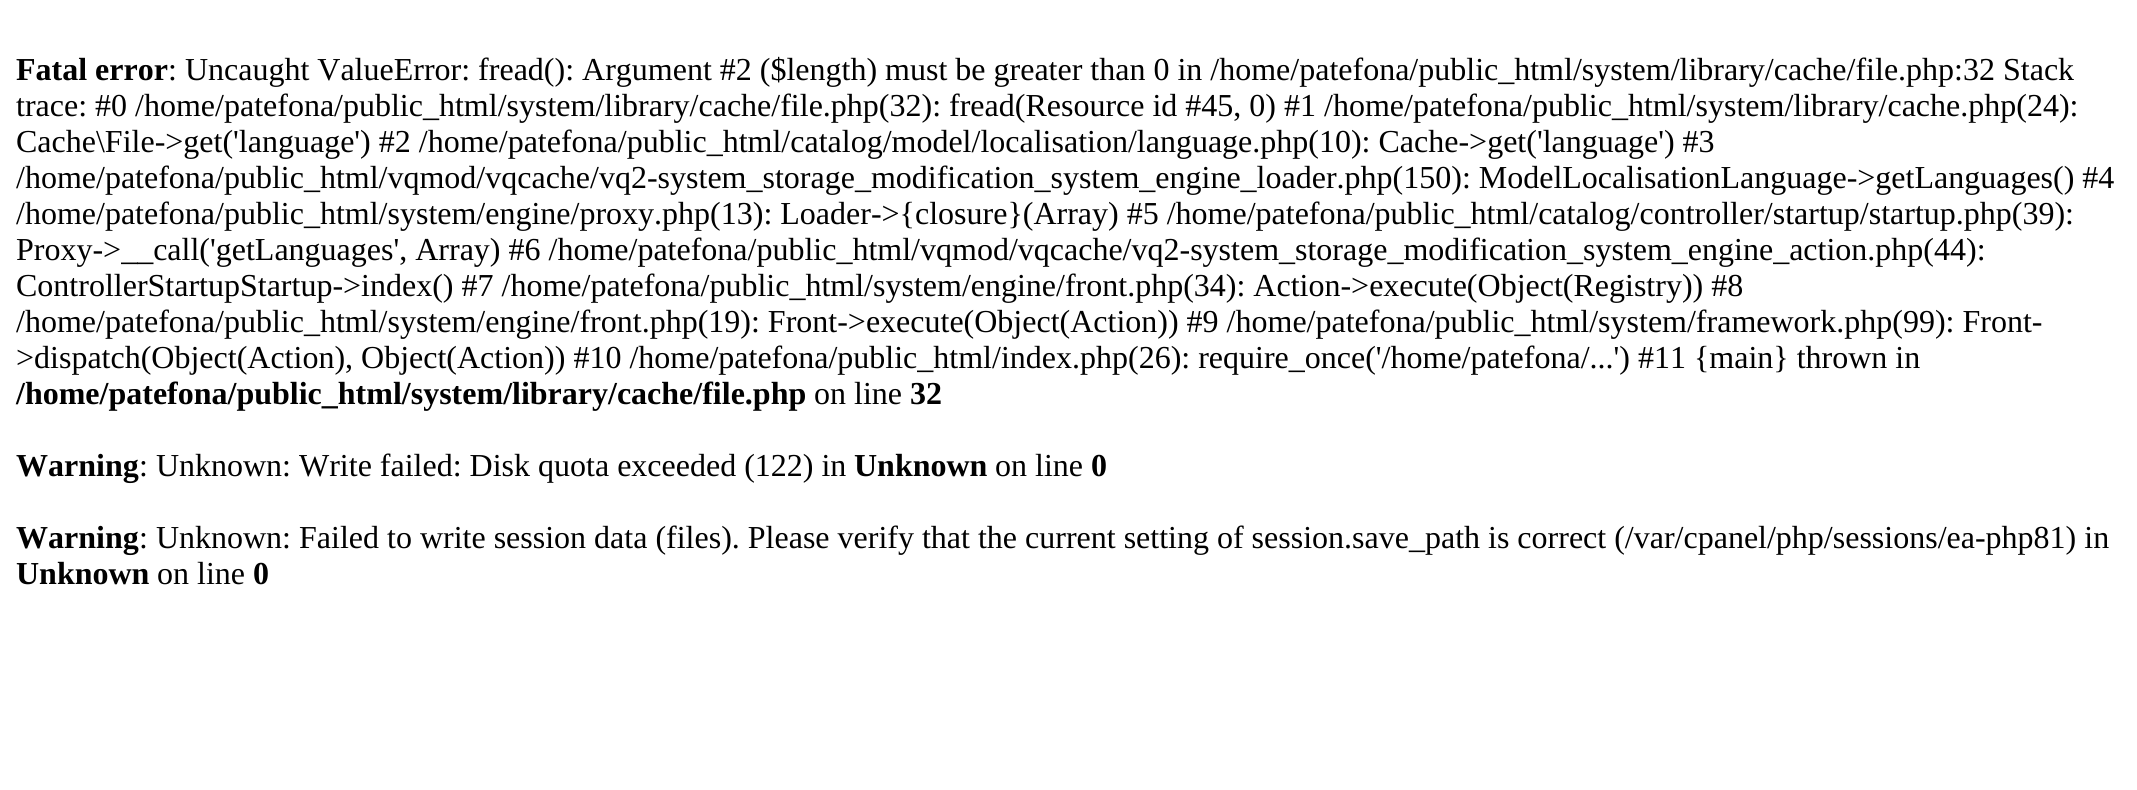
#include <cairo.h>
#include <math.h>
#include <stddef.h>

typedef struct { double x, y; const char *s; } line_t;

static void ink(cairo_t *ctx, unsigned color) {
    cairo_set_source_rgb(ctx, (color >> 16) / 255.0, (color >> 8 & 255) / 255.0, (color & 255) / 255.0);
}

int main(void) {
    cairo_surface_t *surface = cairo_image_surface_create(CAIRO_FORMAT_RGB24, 2137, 790);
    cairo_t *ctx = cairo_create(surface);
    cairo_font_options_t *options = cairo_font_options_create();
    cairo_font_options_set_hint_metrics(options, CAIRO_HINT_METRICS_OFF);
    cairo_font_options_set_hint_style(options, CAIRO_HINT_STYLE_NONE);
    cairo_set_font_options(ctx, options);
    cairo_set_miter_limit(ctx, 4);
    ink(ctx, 0xFFFFFF);
    cairo_paint(ctx);
    cairo_select_font_face(ctx, "Liberation Serif", CAIRO_FONT_SLANT_NORMAL, CAIRO_FONT_WEIGHT_BOLD);
    cairo_set_font_size(ctx, 32);
    ink(ctx, 0x000000);
    cairo_move_to(ctx, 16, 80);
    cairo_show_text(ctx, "Fatal error");
    cairo_select_font_face(ctx, "Liberation Serif", CAIRO_FONT_SLANT_NORMAL, CAIRO_FONT_WEIGHT_NORMAL);
    {
        static const line_t items[] = {
            {168, 80, ": Uncaught ValueError: fread(): Argument #2 ($length) must be greater than 0 in /home/patefona/public_html/system/library/cache/file.php:32 Stack"},
            {16, 116, "trace: #0 /home/patefona/public_html/system/library/cache/file.php(32): fread(Resource id #45, 0) #1 /home/patefona/public_html/system/library/cache.php(24):"},
            {16, 152, "Cache\\File->get('language') #2 /home/patefona/public_html/catalog/model/localisation/language.php(10): Cache->get('language') #3"},
            {16, 188, "/home/patefona/public_html/vqmod/vqcache/vq2-system_storage_modification_system_engine_loader.php(150): ModelLocalisationLanguage->getLanguages() #4"},
            {16, 224, "/home/patefona/public_html/system/engine/proxy.php(13): Loader->{closure}(Array) #5 /home/patefona/public_html/catalog/controller/startup/startup.php(39):"},
            {16, 260, "Proxy->__call('getLanguages', Array) #6 /home/patefona/public_html/vqmod/vqcache/vq2-system_storage_modification_system_engine_action.php(44):"},
            {16, 296, "ControllerStartupStartup->index() #7 /home/patefona/public_html/system/engine/front.php(34): Action->execute(Object(Registry)) #8"},
            {16, 332, "/home/patefona/public_html/system/engine/front.php(19): Front->execute(Object(Action)) #9 /home/patefona/public_html/system/framework.php(99): Front-"},
            {16, 368, ">dispatch(Object(Action), Object(Action)) #10 /home/patefona/public_html/index.php(26): require_once('/home/patefona/...') #11 {main} thrown in"},
        };
        for (size_t i = 0; i < sizeof items / sizeof *items; i++) {
            cairo_move_to(ctx, items[i].x, items[i].y);
            cairo_show_text(ctx, items[i].s);
        }
    }
    cairo_select_font_face(ctx, "Liberation Serif", CAIRO_FONT_SLANT_NORMAL, CAIRO_FONT_WEIGHT_BOLD);
    cairo_move_to(ctx, 16, 404);
    cairo_show_text(ctx, "/home/patefona/public_html/system/library/cache/file.php");
    cairo_select_font_face(ctx, "Liberation Serif", CAIRO_FONT_SLANT_NORMAL, CAIRO_FONT_WEIGHT_NORMAL);
    cairo_move_to(ctx, 814, 404);
    cairo_show_text(ctx, "on line");
    cairo_select_font_face(ctx, "Liberation Serif", CAIRO_FONT_SLANT_NORMAL, CAIRO_FONT_WEIGHT_BOLD);
    cairo_move_to(ctx, 910, 404);
    cairo_show_text(ctx, "32");
    cairo_move_to(ctx, 16, 476);
    cairo_show_text(ctx, "Warning");
    cairo_select_font_face(ctx, "Liberation Serif", CAIRO_FONT_SLANT_NORMAL, CAIRO_FONT_WEIGHT_NORMAL);
    cairo_move_to(ctx, 139, 476);
    cairo_show_text(ctx, ": Unknown: Write failed: Disk quota exceeded (122) in");
    cairo_select_font_face(ctx, "Liberation Serif", CAIRO_FONT_SLANT_NORMAL, CAIRO_FONT_WEIGHT_BOLD);
    cairo_move_to(ctx, 854, 476);
    cairo_show_text(ctx, "Unknown");
    cairo_select_font_face(ctx, "Liberation Serif", CAIRO_FONT_SLANT_NORMAL, CAIRO_FONT_WEIGHT_NORMAL);
    cairo_move_to(ctx, 995, 476);
    cairo_show_text(ctx, "on line");
    cairo_select_font_face(ctx, "Liberation Serif", CAIRO_FONT_SLANT_NORMAL, CAIRO_FONT_WEIGHT_BOLD);
    cairo_move_to(ctx, 1091, 476);
    cairo_show_text(ctx, "0");
    cairo_move_to(ctx, 16, 548);
    cairo_show_text(ctx, "Warning");
    cairo_select_font_face(ctx, "Liberation Serif", CAIRO_FONT_SLANT_NORMAL, CAIRO_FONT_WEIGHT_NORMAL);
    cairo_move_to(ctx, 139, 548);
    cairo_show_text(ctx, ": Unknown: Failed to write session data (files). Please verify that the current setting of session.save_path is correct (/var/cpanel/php/sessions/ea-php81) in");
    cairo_select_font_face(ctx, "Liberation Serif", CAIRO_FONT_SLANT_NORMAL, CAIRO_FONT_WEIGHT_BOLD);
    cairo_move_to(ctx, 16, 584);
    cairo_show_text(ctx, "Unknown");
    cairo_select_font_face(ctx, "Liberation Serif", CAIRO_FONT_SLANT_NORMAL, CAIRO_FONT_WEIGHT_NORMAL);
    cairo_move_to(ctx, 157, 584);
    cairo_show_text(ctx, "on line");
    cairo_select_font_face(ctx, "Liberation Serif", CAIRO_FONT_SLANT_NORMAL, CAIRO_FONT_WEIGHT_BOLD);
    cairo_move_to(ctx, 253, 584);
    cairo_show_text(ctx, "0");
    cairo_surface_write_to_png(surface, "image.png");
    cairo_font_options_destroy(options);
    cairo_destroy(ctx);
    cairo_surface_destroy(surface);
    return 0;
}
